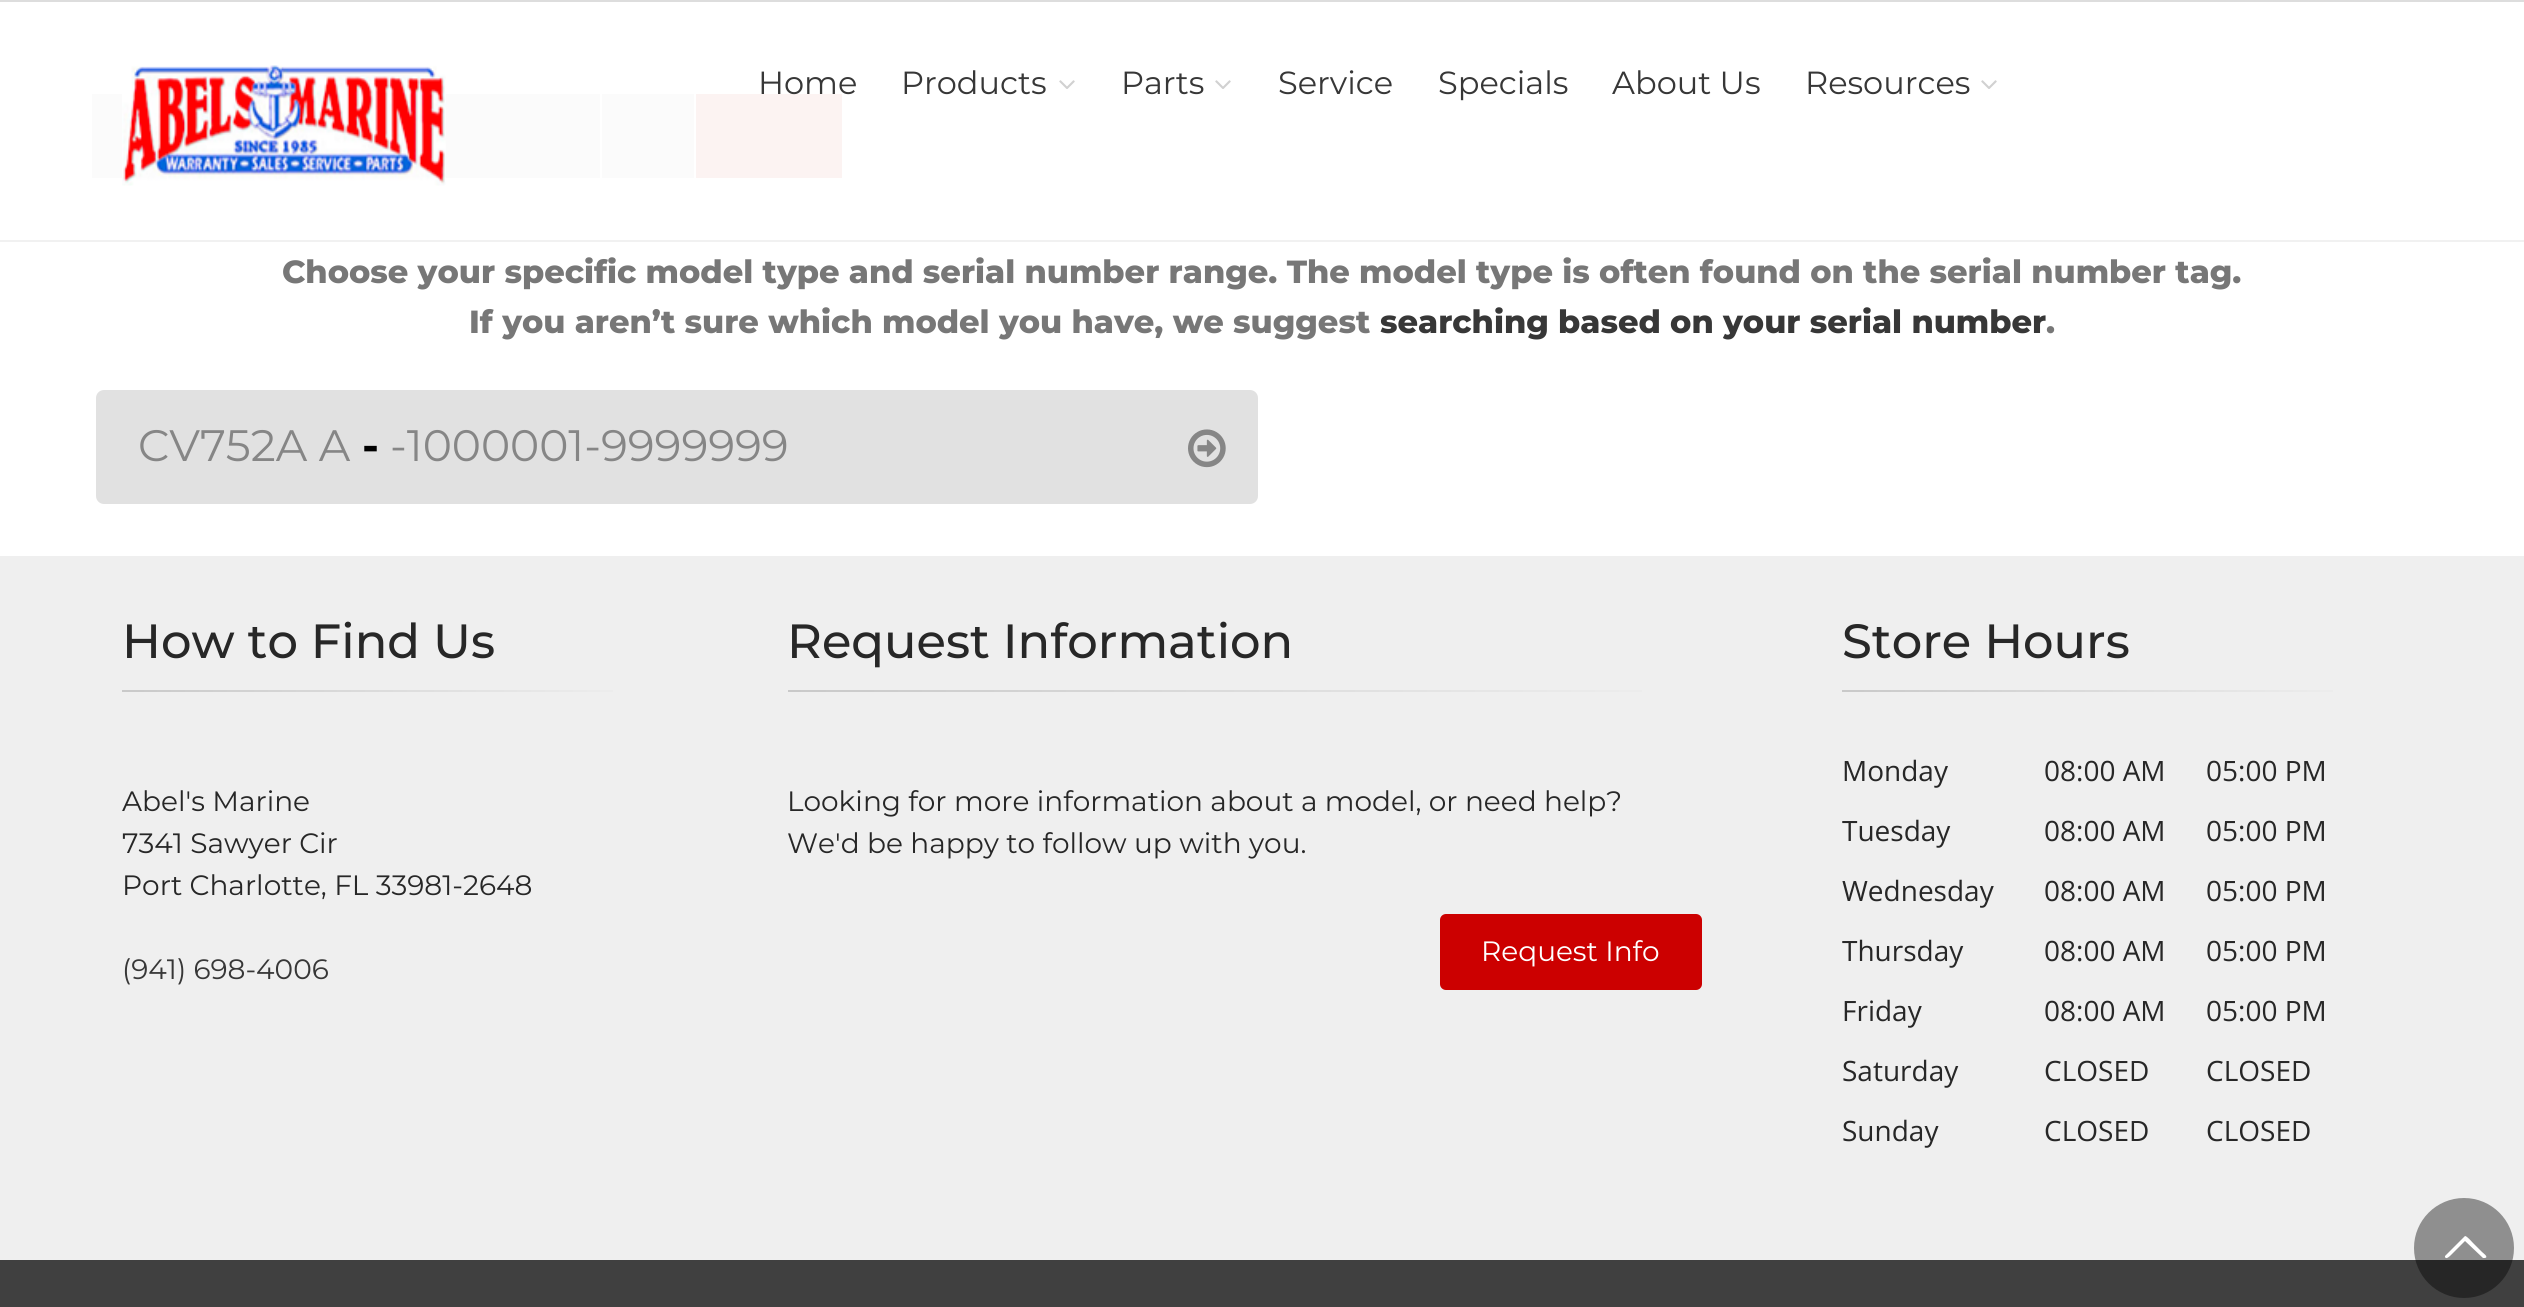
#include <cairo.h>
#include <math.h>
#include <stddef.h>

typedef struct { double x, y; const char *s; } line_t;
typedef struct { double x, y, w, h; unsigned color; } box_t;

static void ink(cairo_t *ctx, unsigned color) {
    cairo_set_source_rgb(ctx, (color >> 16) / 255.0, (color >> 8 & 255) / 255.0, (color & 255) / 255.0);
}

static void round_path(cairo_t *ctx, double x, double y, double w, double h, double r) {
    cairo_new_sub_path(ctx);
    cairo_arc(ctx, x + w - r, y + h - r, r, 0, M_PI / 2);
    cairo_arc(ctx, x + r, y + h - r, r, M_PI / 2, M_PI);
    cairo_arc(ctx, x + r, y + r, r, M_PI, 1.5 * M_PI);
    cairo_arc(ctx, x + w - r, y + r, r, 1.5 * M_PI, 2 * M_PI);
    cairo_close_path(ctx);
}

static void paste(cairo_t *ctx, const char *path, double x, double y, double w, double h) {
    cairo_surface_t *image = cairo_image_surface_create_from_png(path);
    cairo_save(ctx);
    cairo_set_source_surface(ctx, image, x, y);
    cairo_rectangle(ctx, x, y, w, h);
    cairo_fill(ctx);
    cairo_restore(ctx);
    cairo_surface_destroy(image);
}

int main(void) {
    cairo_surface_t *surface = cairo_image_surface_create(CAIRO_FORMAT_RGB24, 2524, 1307);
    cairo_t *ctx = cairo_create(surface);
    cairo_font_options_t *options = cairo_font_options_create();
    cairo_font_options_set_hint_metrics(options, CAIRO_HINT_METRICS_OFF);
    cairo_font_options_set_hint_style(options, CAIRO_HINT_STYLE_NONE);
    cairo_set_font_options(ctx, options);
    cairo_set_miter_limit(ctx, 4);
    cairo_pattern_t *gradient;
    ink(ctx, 0xFFFFFF);
    cairo_paint(ctx);
    {
        static const box_t items[] = {
            {0, 0, 2524, 2, 0xDDDDDD},
            {0, 240, 2524, 2, 0xF1F1F1},
            {445, 94, 155, 84, 0xFBFBFB},
        };
        for (size_t i = 0; i < sizeof items / sizeof *items; i++) {
            ink(ctx, items[i].color);
            cairo_rectangle(ctx, items[i].x, items[i].y, items[i].w, items[i].h);
            cairo_fill(ctx);
        }
    }
    paste(ctx, "media/1.png", 122, 65, 324, 121);
    ink(ctx, 0xFCF3F2);
    cairo_rectangle(ctx, 696, 94, 146, 84);
    cairo_fill(ctx);
    cairo_select_font_face(ctx, "Montserrat", CAIRO_FONT_SLANT_NORMAL, CAIRO_FONT_WEIGHT_NORMAL);
    cairo_set_font_size(ctx, 32);
    ink(ctx, 0x373737);
    cairo_move_to(ctx, 758, 94);
    cairo_show_text(ctx, "Home");
    cairo_move_to(ctx, 901, 94);
    cairo_show_text(ctx, "Products");
    paste(ctx, "media/2.png", 1059, 80, 16, 9);
    cairo_move_to(ctx, 1121, 94);
    cairo_show_text(ctx, "Parts");
    paste(ctx, "media/2.png", 1215, 80, 16, 9);
    {
        static const line_t items[] = {
            {1278, 94, "Service"},
            {1438, 94, "Specials"},
            {1612, 94, "About Us"},
            {1805, 94, "Resources"},
        };
        for (size_t i = 0; i < sizeof items / sizeof *items; i++) {
            cairo_move_to(ctx, items[i].x, items[i].y);
            cairo_show_text(ctx, items[i].s);
        }
    }
    paste(ctx, "media/2.png", 1981, 80, 16, 9);
    ink(ctx, 0xFBFBFB);
    cairo_rectangle(ctx, 92, 94, 30, 84);
    cairo_fill(ctx);
    cairo_rectangle(ctx, 602, 94, 92, 84);
    cairo_fill(ctx);
    cairo_select_font_face(ctx, "Montserrat ExtraBold", CAIRO_FONT_SLANT_NORMAL, CAIRO_FONT_WEIGHT_NORMAL);
    ink(ctx, 0x777777);
    cairo_move_to(ctx, 282, 283);
    cairo_show_text(ctx, "Choose your specific model type and serial number range. The model type is often found on the serial number tag.");
    cairo_move_to(ctx, 469, 333);
    cairo_show_text(ctx, "If you aren’t sure which model you have, we suggest");
    ink(ctx, 0x373737);
    cairo_move_to(ctx, 1380, 333);
    cairo_show_text(ctx, "searching based on your serial number");
    ink(ctx, 0x777777);
    cairo_move_to(ctx, 2046, 333);
    cairo_show_text(ctx, ".");
    ink(ctx, 0xE1E1E1);
    round_path(ctx, 96, 390, 1162, 114, 8);
    cairo_fill(ctx);
    cairo_select_font_face(ctx, "Montserrat", CAIRO_FONT_SLANT_NORMAL, CAIRO_FONT_WEIGHT_NORMAL);
    cairo_set_font_size(ctx, 44);
    ink(ctx, 0x868686);
    cairo_move_to(ctx, 138, 461);
    cairo_show_text(ctx, "CV752A A");
    cairo_select_font_face(ctx, "Montserrat", CAIRO_FONT_SLANT_NORMAL, CAIRO_FONT_WEIGHT_BOLD);
    ink(ctx, 0x000000);
    cairo_move_to(ctx, 362, 461);
    cairo_show_text(ctx, "-");
    cairo_select_font_face(ctx, "Montserrat", CAIRO_FONT_SLANT_NORMAL, CAIRO_FONT_WEIGHT_NORMAL);
    ink(ctx, 0x868686);
    cairo_move_to(ctx, 390, 461);
    cairo_show_text(ctx, "-1000001-9999999");
    paste(ctx, "media/3.png", 1188, 429, 38, 39);
    ink(ctx, 0xEFEFEF);
    cairo_rectangle(ctx, 0, 556, 2524, 704);
    cairo_fill(ctx);
    cairo_select_font_face(ctx, "Montserrat Medium", CAIRO_FONT_SLANT_NORMAL, CAIRO_FONT_WEIGHT_NORMAL);
    cairo_set_font_size(ctx, 48);
    ink(ctx, 0x272727);
    cairo_move_to(ctx, 122, 658);
    cairo_show_text(ctx, "How to Find Us");
    gradient = cairo_pattern_create_linear(122, 691, 648, 691);
    cairo_pattern_add_color_stop_rgba(gradient, 0, 0.788, 0.788, 0.788, 1);
    cairo_pattern_add_color_stop_rgba(gradient, 1, 0.937, 0.937, 0.937, 1);
    cairo_set_source(ctx, gradient);
    cairo_pattern_destroy(gradient);
    cairo_rectangle(ctx, 122, 690, 491, 2);
    cairo_fill(ctx);
    cairo_select_font_face(ctx, "Montserrat", CAIRO_FONT_SLANT_NORMAL, CAIRO_FONT_WEIGHT_NORMAL);
    cairo_set_font_size(ctx, 28);
    ink(ctx, 0x272727);
    {
        static const line_t items[] = {
            {122, 811, "Abel's Marine"},
            {122, 853, "7341 Sawyer Cir"},
            {122, 895, "Port Charlotte, FL 33981-2648"},
        };
        for (size_t i = 0; i < sizeof items / sizeof *items; i++) {
            cairo_move_to(ctx, items[i].x, items[i].y);
            cairo_show_text(ctx, items[i].s);
        }
    }
    ink(ctx, 0x373737);
    cairo_move_to(ctx, 122, 979);
    cairo_show_text(ctx, "(941) 698-4006");
    cairo_select_font_face(ctx, "Montserrat Medium", CAIRO_FONT_SLANT_NORMAL, CAIRO_FONT_WEIGHT_NORMAL);
    cairo_set_font_size(ctx, 48);
    ink(ctx, 0x272727);
    cairo_move_to(ctx, 787, 658);
    cairo_show_text(ctx, "Request Information");
    gradient = cairo_pattern_create_linear(788, 691, 1702, 691);
    cairo_pattern_add_color_stop_rgba(gradient, 0, 0.788, 0.788, 0.788, 1);
    cairo_pattern_add_color_stop_rgba(gradient, 1, 0.937, 0.937, 0.937, 1);
    cairo_set_source(ctx, gradient);
    cairo_pattern_destroy(gradient);
    cairo_rectangle(ctx, 788, 690, 854, 2);
    cairo_fill(ctx);
    cairo_select_font_face(ctx, "Montserrat", CAIRO_FONT_SLANT_NORMAL, CAIRO_FONT_WEIGHT_NORMAL);
    cairo_set_font_size(ctx, 28);
    ink(ctx, 0x272727);
    cairo_move_to(ctx, 787, 811);
    cairo_show_text(ctx, "Looking for more information about a model, or need help?");
    cairo_move_to(ctx, 787, 853);
    cairo_show_text(ctx, "We'd be happy to follow up with you.");
    ink(ctx, 0xCC0000);
    round_path(ctx, 1441, 915, 260, 74, 5);
    cairo_fill_preserve(ctx);
    cairo_stroke(ctx);
    ink(ctx, 0xFFFFFF);
    cairo_move_to(ctx, 1481, 961);
    cairo_show_text(ctx, "Request Info");
    cairo_select_font_face(ctx, "Montserrat Medium", CAIRO_FONT_SLANT_NORMAL, CAIRO_FONT_WEIGHT_NORMAL);
    cairo_set_font_size(ctx, 48);
    ink(ctx, 0x272727);
    cairo_move_to(ctx, 1842, 658);
    cairo_show_text(ctx, "Store Hours");
    gradient = cairo_pattern_create_linear(1842, 691, 2368, 691);
    cairo_pattern_add_color_stop_rgba(gradient, 0, 0.788, 0.788, 0.788, 1);
    cairo_pattern_add_color_stop_rgba(gradient, 1, 0.937, 0.937, 0.937, 1);
    cairo_set_source(ctx, gradient);
    cairo_pattern_destroy(gradient);
    cairo_rectangle(ctx, 1842, 690, 491, 2);
    cairo_fill(ctx);
    cairo_select_font_face(ctx, "Open Sans", CAIRO_FONT_SLANT_NORMAL, CAIRO_FONT_WEIGHT_NORMAL);
    cairo_set_font_size(ctx, 28);
    ink(ctx, 0x272727);
    {
        static const line_t items[] = {
            {1842, 781, "Monday"},
            {2044, 781, "08:00 AM"},
            {2206, 781, "05:00 PM"},
            {1842, 841, "Tuesday"},
            {2044, 841, "08:00 AM"},
            {2206, 841, "05:00 PM"},
            {1842, 901, "Wednesday"},
            {2044, 901, "08:00 AM"},
            {2206, 901, "05:00 PM"},
            {1842, 961, "Thursday"},
            {2044, 961, "08:00 AM"},
            {2206, 961, "05:00 PM"},
            {1842, 1021, "Friday"},
            {2044, 1021, "08:00 AM"},
            {2206, 1021, "05:00 PM"},
            {1842, 1081, "Saturday"},
            {2044, 1081, "CLOSED"},
            {2206, 1081, "CLOSED"},
            {1842, 1141, "Sunday"},
            {2044, 1141, "CLOSED"},
            {2206, 1141, "CLOSED"},
        };
        for (size_t i = 0; i < sizeof items / sizeof *items; i++) {
            cairo_move_to(ctx, items[i].x, items[i].y);
            cairo_show_text(ctx, items[i].s);
        }
    }
    ink(ctx, 0x404040);
    cairo_rectangle(ctx, 0, 1260, 2524, 47);
    cairo_fill(ctx);
    cairo_set_source_rgba(ctx, 0, 0, 0, 0.4);
    cairo_arc(ctx, 2464, 1248, 50, 0, 2 * M_PI);
    cairo_fill(ctx);
    ink(ctx, 0xFFFFFF);
    cairo_new_path(ctx);
    cairo_move_to(ctx, 2483, 1258);
    cairo_line_to(ctx, 2465, 1241);
    cairo_line_to(ctx, 2451, 1255);
    cairo_curve_to(ctx, 2450, 1256, 2446, 1260, 2445, 1257);
    cairo_line_to(ctx, 2445, 1256);
    cairo_line_to(ctx, 2465, 1236);
    cairo_curve_to(ctx, 2467, 1236, 2472, 1242, 2473, 1243);
    cairo_line_to(ctx, 2482, 1252);
    cairo_curve_to(ctx, 2483, 1253, 2489, 1257, 2485, 1258);
    cairo_close_path(ctx);
    cairo_fill(ctx);
    cairo_surface_write_to_png(surface, "image.png");
    cairo_font_options_destroy(options);
    cairo_destroy(ctx);
    cairo_surface_destroy(surface);
    return 0;
}
